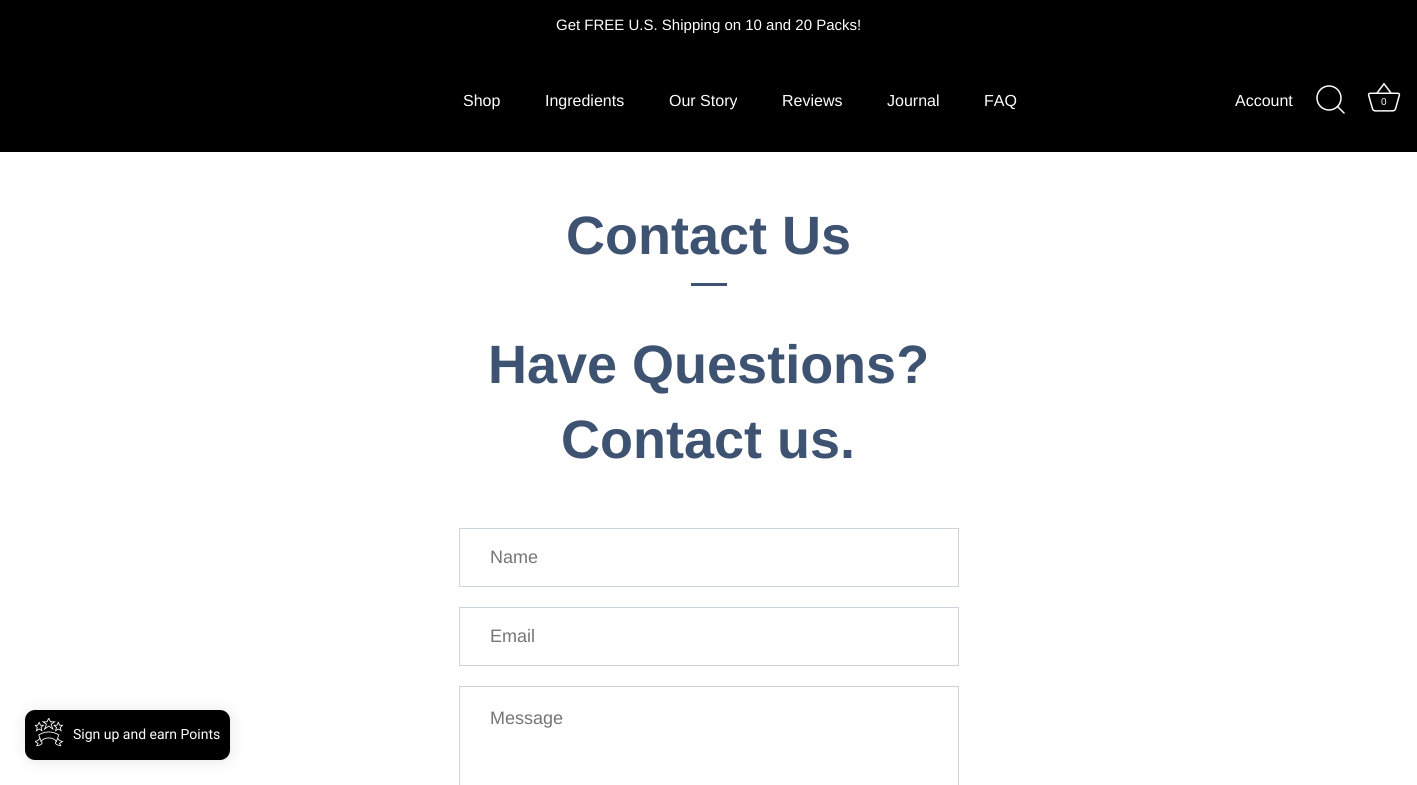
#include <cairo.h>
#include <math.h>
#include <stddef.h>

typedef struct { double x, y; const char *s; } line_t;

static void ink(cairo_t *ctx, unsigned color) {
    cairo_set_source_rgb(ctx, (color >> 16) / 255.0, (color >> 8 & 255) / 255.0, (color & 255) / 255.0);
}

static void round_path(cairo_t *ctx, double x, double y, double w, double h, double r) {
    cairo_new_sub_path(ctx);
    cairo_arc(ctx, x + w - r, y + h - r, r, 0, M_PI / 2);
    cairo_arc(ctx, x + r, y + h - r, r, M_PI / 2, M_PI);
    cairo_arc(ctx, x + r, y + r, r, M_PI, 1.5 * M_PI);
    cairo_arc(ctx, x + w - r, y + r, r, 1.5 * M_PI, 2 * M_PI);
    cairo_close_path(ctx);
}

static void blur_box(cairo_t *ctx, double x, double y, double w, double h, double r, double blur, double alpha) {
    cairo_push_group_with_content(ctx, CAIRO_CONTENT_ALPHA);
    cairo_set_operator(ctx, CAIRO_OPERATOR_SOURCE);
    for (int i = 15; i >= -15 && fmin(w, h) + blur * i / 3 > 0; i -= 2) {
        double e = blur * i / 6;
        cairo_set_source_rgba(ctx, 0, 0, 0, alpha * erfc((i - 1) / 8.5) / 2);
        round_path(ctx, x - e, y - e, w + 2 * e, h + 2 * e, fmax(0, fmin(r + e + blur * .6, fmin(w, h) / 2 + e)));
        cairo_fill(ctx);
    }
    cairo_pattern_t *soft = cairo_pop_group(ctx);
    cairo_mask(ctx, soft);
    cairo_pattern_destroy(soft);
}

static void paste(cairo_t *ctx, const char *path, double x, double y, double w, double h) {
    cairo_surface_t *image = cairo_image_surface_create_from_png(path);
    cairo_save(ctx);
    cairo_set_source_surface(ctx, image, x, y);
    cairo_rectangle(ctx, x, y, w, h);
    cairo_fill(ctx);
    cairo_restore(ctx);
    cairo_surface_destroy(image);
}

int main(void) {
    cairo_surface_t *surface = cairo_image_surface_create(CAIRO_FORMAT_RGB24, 1417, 785);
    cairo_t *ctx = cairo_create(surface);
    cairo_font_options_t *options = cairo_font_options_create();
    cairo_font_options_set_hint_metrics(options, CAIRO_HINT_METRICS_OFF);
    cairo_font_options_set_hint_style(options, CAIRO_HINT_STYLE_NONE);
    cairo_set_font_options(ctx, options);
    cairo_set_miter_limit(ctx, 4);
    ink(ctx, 0xFFFFFF);
    cairo_paint(ctx);
    ink(ctx, 0x000000);
    cairo_rectangle(ctx, 0, 0, 1417, 152);
    cairo_fill(ctx);
    cairo_select_font_face(ctx, "Liberation Sans", CAIRO_FONT_SLANT_NORMAL, CAIRO_FONT_WEIGHT_NORMAL);
    cairo_set_font_size(ctx, 15);
    ink(ctx, 0xFFFFFF);
    cairo_move_to(ctx, 556, 30);
    cairo_show_text(ctx, "Get FREE U.S. Shipping on 10 and 20 Packs!");
    cairo_set_font_size(ctx, 16);
    {
        static const line_t items[] = {
            {463, 106, "Shop"},
            {545, 106, "Ingredients"},
            {669, 106, "Our Story"},
            {782, 106, "Reviews"},
            {887, 106, "Journal"},
            {984, 106, "FAQ"},
            {1235, 106, "Account"},
        };
        for (size_t i = 0; i < sizeof items / sizeof *items; i++) {
            cairo_move_to(ctx, items[i].x, items[i].y);
            cairo_show_text(ctx, items[i].s);
        }
    }
    cairo_new_path(ctx);
    cairo_arc(ctx, 1329, 98, 12, 0, 2 * M_PI);
    cairo_set_line_width(ctx, 1.5);
    cairo_stroke(ctx);
    cairo_new_path(ctx);
    cairo_move_to(ctx, 1344, 113);
    cairo_line_to(ctx, 1337.5, 106.5);
    cairo_set_line_cap(ctx, CAIRO_LINE_CAP_ROUND);
    cairo_set_line_join(ctx, CAIRO_LINE_JOIN_ROUND);
    cairo_stroke(ctx);
    paste(ctx, "media/1.png", 1367, 83, 34, 29);
    cairo_set_font_size(ctx, 10);
    cairo_move_to(ctx, 1381, 105);
    cairo_show_text(ctx, "0");
    cairo_select_font_face(ctx, "Liberation Sans", CAIRO_FONT_SLANT_NORMAL, CAIRO_FONT_WEIGHT_BOLD);
    cairo_set_font_size(ctx, 54);
    ink(ctx, 0x3E5271);
    cairo_move_to(ctx, 566, 254);
    cairo_show_text(ctx, "Contact Us");
    cairo_rectangle(ctx, 691, 283, 36, 3);
    cairo_fill(ctx);
    cairo_move_to(ctx, 488, 383);
    cairo_show_text(ctx, "Have Questions?");
    cairo_move_to(ctx, 561, 458);
    cairo_show_text(ctx, "Contact us.");
    cairo_rectangle(ctx, 459.5, 528.5, 499, 58);
    ink(ctx, 0xCFD4DC);
    cairo_set_line_width(ctx, 1);
    cairo_set_line_cap(ctx, CAIRO_LINE_CAP_BUTT);
    cairo_set_line_join(ctx, CAIRO_LINE_JOIN_MITER);
    cairo_stroke(ctx);
    cairo_select_font_face(ctx, "Liberation Sans", CAIRO_FONT_SLANT_NORMAL, CAIRO_FONT_WEIGHT_NORMAL);
    cairo_set_font_size(ctx, 18);
    ink(ctx, 0x757575);
    cairo_move_to(ctx, 490, 563);
    cairo_show_text(ctx, "Name");
    cairo_rectangle(ctx, 459.5, 607.5, 499, 58);
    ink(ctx, 0xCFD4DC);
    cairo_stroke(ctx);
    ink(ctx, 0x757575);
    cairo_move_to(ctx, 490, 642);
    cairo_show_text(ctx, "Email");
    cairo_rectangle(ctx, 459.5, 686.5, 499, 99);
    ink(ctx, 0xCFD4DC);
    cairo_stroke(ctx);
    ink(ctx, 0x757575);
    cairo_move_to(ctx, 490, 724);
    cairo_show_text(ctx, "Message");
    ink(ctx, 0x000000);
    blur_box(ctx, 26, 711, 205, 50, 10, 7.5, 0.1);
    ink(ctx, 0x000000);
    round_path(ctx, 25, 710, 205, 50, 10);
    cairo_fill(ctx);
    paste(ctx, "media/2.png", 35, 718, 29, 29);
    cairo_select_font_face(ctx, "Roboto", CAIRO_FONT_SLANT_NORMAL, CAIRO_FONT_WEIGHT_NORMAL);
    cairo_set_font_size(ctx, 14);
    ink(ctx, 0xFFFFFF);
    cairo_move_to(ctx, 73, 739);
    cairo_show_text(ctx, "Sign up and earn Points");
    cairo_surface_write_to_png(surface, "image.png");
    cairo_font_options_destroy(options);
    cairo_destroy(ctx);
    cairo_surface_destroy(surface);
    return 0;
}
